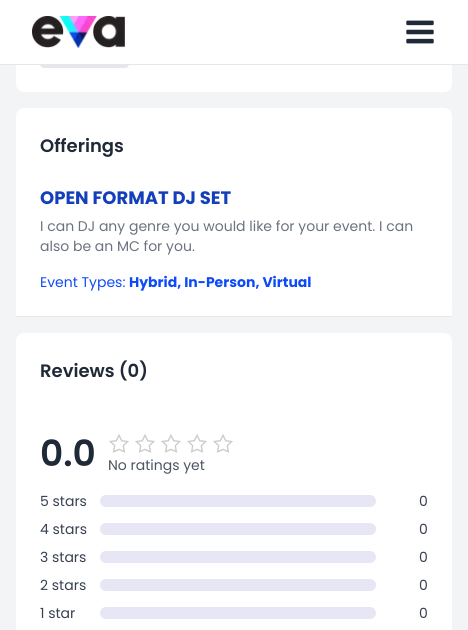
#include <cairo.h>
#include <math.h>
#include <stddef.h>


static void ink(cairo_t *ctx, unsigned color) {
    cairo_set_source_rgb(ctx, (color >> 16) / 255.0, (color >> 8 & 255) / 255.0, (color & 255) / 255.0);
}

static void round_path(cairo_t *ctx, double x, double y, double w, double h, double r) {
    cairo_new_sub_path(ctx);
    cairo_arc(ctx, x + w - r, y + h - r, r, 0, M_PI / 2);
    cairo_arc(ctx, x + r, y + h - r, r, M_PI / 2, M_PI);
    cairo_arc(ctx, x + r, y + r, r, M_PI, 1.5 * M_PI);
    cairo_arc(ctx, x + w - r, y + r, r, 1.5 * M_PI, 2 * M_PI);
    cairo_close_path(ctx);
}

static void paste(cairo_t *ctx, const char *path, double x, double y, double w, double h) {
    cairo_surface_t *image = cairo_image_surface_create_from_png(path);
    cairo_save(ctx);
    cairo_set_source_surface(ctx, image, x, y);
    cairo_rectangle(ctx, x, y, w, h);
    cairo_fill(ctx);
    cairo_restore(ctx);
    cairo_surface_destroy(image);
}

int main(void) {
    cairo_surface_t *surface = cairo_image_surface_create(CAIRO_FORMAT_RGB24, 468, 630);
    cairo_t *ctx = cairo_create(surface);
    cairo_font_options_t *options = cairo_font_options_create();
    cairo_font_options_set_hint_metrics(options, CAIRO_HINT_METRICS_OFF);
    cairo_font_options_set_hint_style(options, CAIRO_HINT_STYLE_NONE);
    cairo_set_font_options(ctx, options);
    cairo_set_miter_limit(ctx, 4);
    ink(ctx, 0xF3F4F6);
    cairo_paint(ctx);
    ink(ctx, 0xFFFFFF);
    round_path(ctx, 16, -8, 436, 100, 8);
    cairo_fill(ctx);
    ink(ctx, 0xE5E7EB);
    round_path(ctx, 40, 40, 89, 28, 4);
    cairo_fill(ctx);
    ink(ctx, 0xFFFFFF);
    cairo_rectangle(ctx, 0, 0, 468, 64);
    cairo_fill(ctx);
    ink(ctx, 0xE5E7EB);
    cairo_rectangle(ctx, 0, 64, 468, 1);
    cairo_fill(ctx);
    paste(ctx, "media/1.png", 32, 16, 93, 32);
    paste(ctx, "media/2.png", 406, 20, 28, 24);
    ink(ctx, 0xFFFFFF);
    round_path(ctx, 16, 108, 436, 209, 8);
    cairo_fill(ctx);
    cairo_select_font_face(ctx, "Poppins SemiBold", CAIRO_FONT_SLANT_NORMAL, CAIRO_FONT_WEIGHT_NORMAL);
    cairo_set_font_size(ctx, 18);
    ink(ctx, 0x1F2937);
    cairo_move_to(ctx, 40, 152);
    cairo_show_text(ctx, "Offerings");
    ink(ctx, 0xFFFFFF);
    cairo_rectangle(ctx, 16, 311, 436, 5);
    cairo_fill(ctx);
    ink(ctx, 0xE5E7EB);
    cairo_rectangle(ctx, 16, 316, 436, 1);
    cairo_fill(ctx);
    cairo_select_font_face(ctx, "Poppins", CAIRO_FONT_SLANT_NORMAL, CAIRO_FONT_WEIGHT_BOLD);
    ink(ctx, 0x143FBB);
    cairo_move_to(ctx, 40, 204);
    cairo_show_text(ctx, "OPEN FORMAT DJ SET");
    cairo_select_font_face(ctx, "Poppins", CAIRO_FONT_SLANT_NORMAL, CAIRO_FONT_WEIGHT_NORMAL);
    cairo_set_font_size(ctx, 14);
    ink(ctx, 0x6B7280);
    cairo_move_to(ctx, 40, 231);
    cairo_show_text(ctx, "I can DJ any genre you would like for your event. I can");
    cairo_move_to(ctx, 40, 251);
    cairo_show_text(ctx, "also be an MC for you.");
    ink(ctx, 0x0D4BF8);
    cairo_move_to(ctx, 40, 287);
    cairo_show_text(ctx, "Event Types:");
    cairo_select_font_face(ctx, "Poppins", CAIRO_FONT_SLANT_NORMAL, CAIRO_FONT_WEIGHT_BOLD);
    cairo_move_to(ctx, 129, 287);
    cairo_show_text(ctx, "Hybrid, In-Person, Virtual");
    ink(ctx, 0xFFFFFF);
    round_path(ctx, 16, 333, 436, 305, 8);
    cairo_fill(ctx);
    cairo_select_font_face(ctx, "Poppins SemiBold", CAIRO_FONT_SLANT_NORMAL, CAIRO_FONT_WEIGHT_NORMAL);
    cairo_set_font_size(ctx, 18);
    ink(ctx, 0x1F2937);
    cairo_move_to(ctx, 40, 377);
    cairo_show_text(ctx, "Reviews (0)");
    cairo_set_font_size(ctx, 36);
    cairo_move_to(ctx, 40, 466);
    cairo_show_text(ctx, "0.0");
    paste(ctx, "media/3.png", 109, 434, 20, 19);
    paste(ctx, "media/3.png", 135, 434, 20, 19);
    paste(ctx, "media/3.png", 161, 434, 20, 19);
    paste(ctx, "media/3.png", 187, 434, 20, 19);
    paste(ctx, "media/3.png", 213, 434, 20, 19);
    cairo_select_font_face(ctx, "Poppins", CAIRO_FONT_SLANT_NORMAL, CAIRO_FONT_WEIGHT_NORMAL);
    cairo_set_font_size(ctx, 14);
    ink(ctx, 0x4B5563);
    cairo_move_to(ctx, 108, 470);
    cairo_show_text(ctx, "No ratings yet");
    ink(ctx, 0x374151);
    cairo_move_to(ctx, 40, 506);
    cairo_show_text(ctx, "5 stars");
    ink(ctx, 0xE7E6F4);
    round_path(ctx, 100, 495, 276, 12, 6);
    cairo_fill(ctx);
    ink(ctx, 0x374151);
    cairo_move_to(ctx, 419, 506);
    cairo_show_text(ctx, "0");
    cairo_move_to(ctx, 40, 534);
    cairo_show_text(ctx, "4 stars");
    ink(ctx, 0xE7E6F4);
    round_path(ctx, 100, 523, 276, 12, 6);
    cairo_fill(ctx);
    ink(ctx, 0x374151);
    cairo_move_to(ctx, 419, 534);
    cairo_show_text(ctx, "0");
    cairo_move_to(ctx, 40, 562);
    cairo_show_text(ctx, "3 stars");
    ink(ctx, 0xE7E6F4);
    round_path(ctx, 100, 551, 276, 12, 6);
    cairo_fill(ctx);
    ink(ctx, 0x374151);
    cairo_move_to(ctx, 419, 562);
    cairo_show_text(ctx, "0");
    cairo_move_to(ctx, 40, 590);
    cairo_show_text(ctx, "2 stars");
    ink(ctx, 0xE7E6F4);
    round_path(ctx, 100, 579, 276, 12, 6);
    cairo_fill(ctx);
    ink(ctx, 0x374151);
    cairo_move_to(ctx, 419, 590);
    cairo_show_text(ctx, "0");
    cairo_move_to(ctx, 40, 618);
    cairo_show_text(ctx, "1 star");
    ink(ctx, 0xE7E6F4);
    round_path(ctx, 100, 607, 276, 12, 6);
    cairo_fill(ctx);
    ink(ctx, 0x374151);
    cairo_move_to(ctx, 419, 618);
    cairo_show_text(ctx, "0");
    cairo_surface_write_to_png(surface, "image.png");
    cairo_font_options_destroy(options);
    cairo_destroy(ctx);
    cairo_surface_destroy(surface);
    return 0;
}
